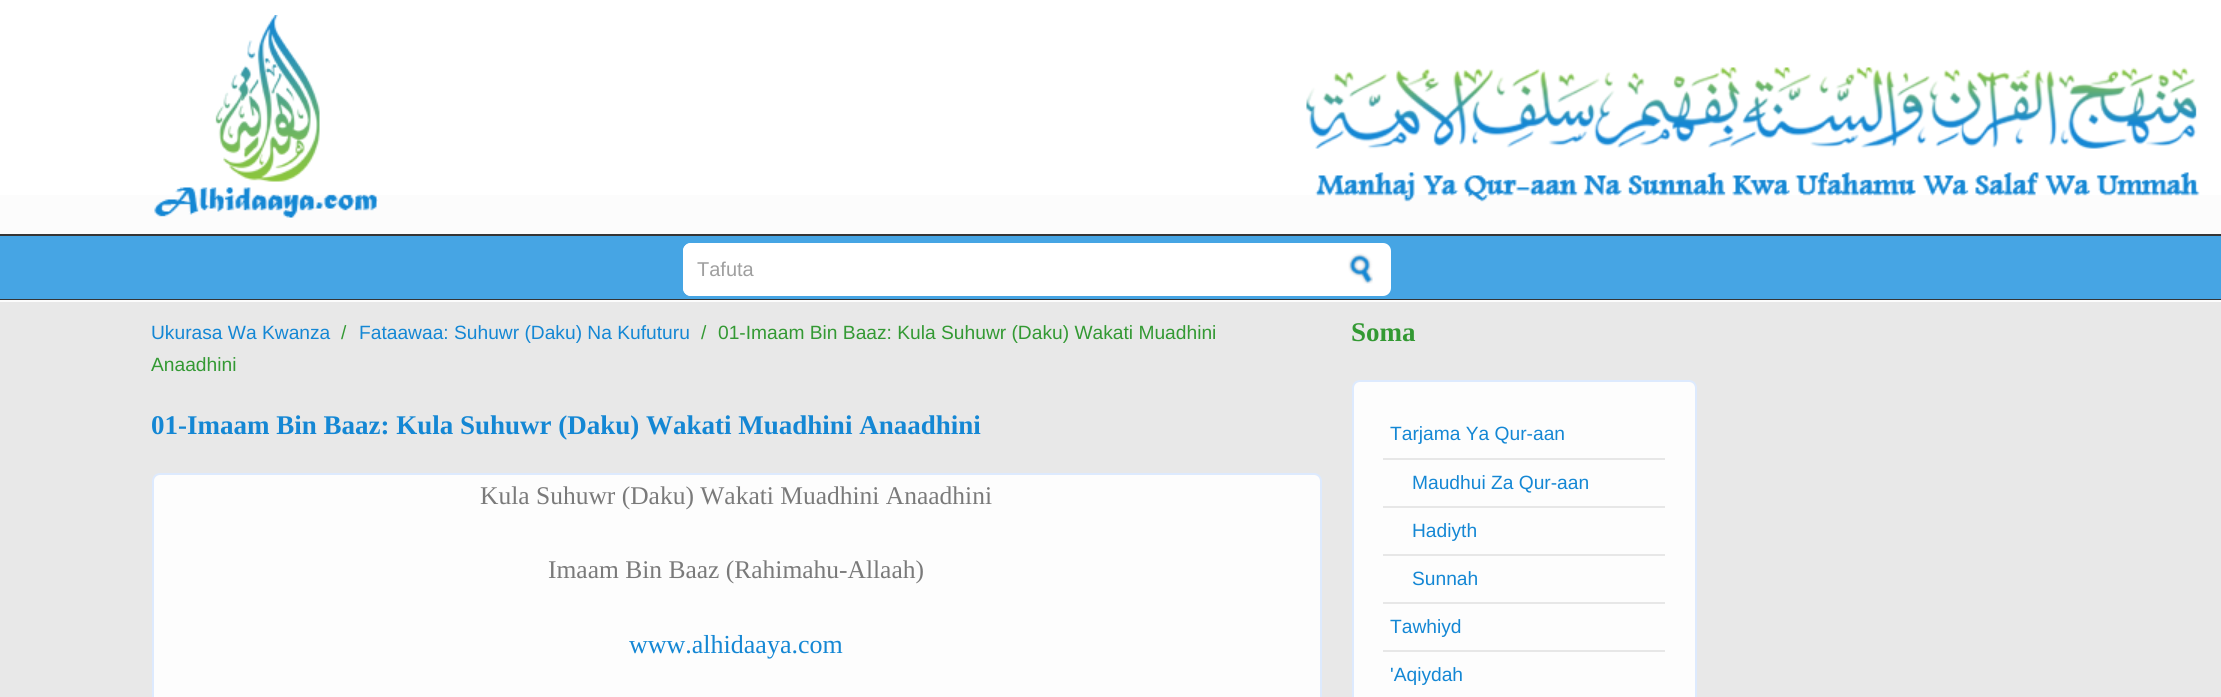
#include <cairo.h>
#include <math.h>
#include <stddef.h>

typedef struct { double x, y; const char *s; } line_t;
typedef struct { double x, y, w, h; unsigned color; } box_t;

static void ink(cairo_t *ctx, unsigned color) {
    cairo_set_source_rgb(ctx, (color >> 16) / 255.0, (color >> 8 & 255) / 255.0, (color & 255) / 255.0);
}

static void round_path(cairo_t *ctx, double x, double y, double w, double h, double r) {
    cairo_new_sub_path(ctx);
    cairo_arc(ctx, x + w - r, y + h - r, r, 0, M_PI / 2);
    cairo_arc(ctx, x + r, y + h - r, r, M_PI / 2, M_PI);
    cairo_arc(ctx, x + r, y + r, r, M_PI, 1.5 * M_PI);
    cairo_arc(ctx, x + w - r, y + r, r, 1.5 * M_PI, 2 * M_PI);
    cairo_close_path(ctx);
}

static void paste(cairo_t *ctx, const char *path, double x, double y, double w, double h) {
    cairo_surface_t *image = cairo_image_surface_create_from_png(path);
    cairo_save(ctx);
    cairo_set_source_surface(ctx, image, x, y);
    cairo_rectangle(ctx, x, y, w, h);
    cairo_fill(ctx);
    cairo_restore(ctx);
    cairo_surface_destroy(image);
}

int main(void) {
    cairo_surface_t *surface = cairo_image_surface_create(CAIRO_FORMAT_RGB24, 2221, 697);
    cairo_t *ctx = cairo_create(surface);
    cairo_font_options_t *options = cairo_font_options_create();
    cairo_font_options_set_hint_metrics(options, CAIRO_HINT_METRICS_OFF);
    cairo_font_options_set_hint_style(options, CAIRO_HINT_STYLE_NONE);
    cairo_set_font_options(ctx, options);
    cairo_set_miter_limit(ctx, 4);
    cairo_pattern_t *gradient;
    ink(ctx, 0xFFFFFF);
    cairo_paint(ctx);
    gradient = cairo_pattern_create_linear(1111, 0, 1111, 234);
    cairo_pattern_add_color_stop_rgba(gradient, 0, 1, 1, 1, 1);
    cairo_pattern_add_color_stop_rgba(gradient, 1, 0.988, 0.988, 0.988, 1);
    cairo_set_source(ctx, gradient);
    cairo_pattern_destroy(gradient);
    cairo_rectangle(ctx, 0, 195, 2221, 39);
    cairo_fill(ctx);
    paste(ctx, "media/1.png", 154, 15, 224, 203);
    paste(ctx, "media/2.png", 1306, 67, 894, 135);
    {
        static const box_t items[] = {
            {0, 236, 2221, 63, 0x46A5E4},
            {0, 234, 2221, 2, 0x353535},
            {0, 299, 2221, 1, 0x353535},
        };
        for (size_t i = 0; i < sizeof items / sizeof *items; i++) {
            ink(ctx, items[i].color);
            cairo_rectangle(ctx, items[i].x, items[i].y, items[i].w, items[i].h);
            cairo_fill(ctx);
        }
    }
    ink(ctx, 0xFFFFFF);
    round_path(ctx, 683, 243, 708, 53, 8);
    cairo_fill(ctx);
    round_path(ctx, 683, 243, 525, 53, 8);
    cairo_fill(ctx);
    cairo_select_font_face(ctx, "Liberation Sans", CAIRO_FONT_SLANT_NORMAL, CAIRO_FONT_WEIGHT_NORMAL);
    cairo_set_font_size(ctx, 20);
    ink(ctx, 0x9F9F9F);
    cairo_move_to(ctx, 697, 276);
    cairo_show_text(ctx, "Tafuta");
    paste(ctx, "media/3.png", 1348, 253, 25, 31);
    ink(ctx, 0xFCFCFC);
    cairo_rectangle(ctx, 0, 300, 2221, 2);
    cairo_fill(ctx);
    ink(ctx, 0xE8E8E8);
    cairo_rectangle(ctx, 0, 302, 2221, 395);
    cairo_fill(ctx);
    cairo_set_font_size(ctx, 19.2);
    ink(ctx, 0x1487D4);
    cairo_move_to(ctx, 151, 339);
    cairo_show_text(ctx, "Ukurasa Wa Kwanza");
    ink(ctx, 0x339933);
    cairo_move_to(ctx, 341, 339);
    cairo_show_text(ctx, "/");
    ink(ctx, 0x1487D4);
    cairo_move_to(ctx, 359, 339);
    cairo_show_text(ctx, "Fataawaa: Suhuwr (Daku) Na Kufuturu");
    ink(ctx, 0x339933);
    {
        static const line_t items[] = {
            {701, 339, "/"},
            {718, 339, "01-Imaam Bin Baaz: Kula Suhuwr (Daku) Wakati Muadhini"},
            {151, 371, "Anaadhini"},
        };
        for (size_t i = 0; i < sizeof items / sizeof *items; i++) {
            cairo_move_to(ctx, items[i].x, items[i].y);
            cairo_show_text(ctx, items[i].s);
        }
    }
    cairo_select_font_face(ctx, "Liberation Serif", CAIRO_FONT_SLANT_NORMAL, CAIRO_FONT_WEIGHT_BOLD);
    cairo_set_font_size(ctx, 27);
    ink(ctx, 0x1487D4);
    cairo_move_to(ctx, 151, 434);
    cairo_show_text(ctx, "01-Imaam Bin Baaz: Kula Suhuwr (Daku) Wakati Muadhini Anaadhini");
    ink(ctx, 0xFDFDFD);
    round_path(ctx, 153, 474, 1168, 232, 7);
    cairo_fill_preserve(ctx);
    ink(ctx, 0xDDEAFE);
    cairo_stroke(ctx);
    cairo_select_font_face(ctx, "Liberation Serif", CAIRO_FONT_SLANT_NORMAL, CAIRO_FONT_WEIGHT_NORMAL);
    cairo_set_font_size(ctx, 25.5);
    ink(ctx, 0x7A7A7A);
    cairo_move_to(ctx, 480, 504);
    cairo_show_text(ctx, "Kula Suhuwr (Daku) Wakati Muadhini Anaadhini");
    cairo_move_to(ctx, 548, 578);
    cairo_show_text(ctx, "Imaam Bin Baaz (Rahimahu-Allaah)");
    cairo_set_font_size(ctx, 26);
    ink(ctx, 0x1487D4);
    cairo_move_to(ctx, 629, 653);
    cairo_show_text(ctx, "www.alhidaaya.com");
    cairo_select_font_face(ctx, "Liberation Serif", CAIRO_FONT_SLANT_NORMAL, CAIRO_FONT_WEIGHT_BOLD);
    cairo_set_font_size(ctx, 27);
    ink(ctx, 0x339933);
    cairo_move_to(ctx, 1351, 341);
    cairo_show_text(ctx, "Soma");
    ink(ctx, 0xFDFDFD);
    round_path(ctx, 1353, 381, 343, 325, 7);
    cairo_fill_preserve(ctx);
    ink(ctx, 0xDDEAFE);
    cairo_stroke(ctx);
    ink(ctx, 0xE7E7E7);
    cairo_rectangle(ctx, 1383, 458, 282, 2);
    cairo_fill(ctx);
    cairo_select_font_face(ctx, "Liberation Sans", CAIRO_FONT_SLANT_NORMAL, CAIRO_FONT_WEIGHT_NORMAL);
    cairo_set_font_size(ctx, 19.2);
    ink(ctx, 0x1487D4);
    cairo_move_to(ctx, 1390, 440);
    cairo_show_text(ctx, "Tarjama Ya Qur-aan");
    ink(ctx, 0xE7E7E7);
    cairo_rectangle(ctx, 1383, 506, 282, 2);
    cairo_fill(ctx);
    ink(ctx, 0x1487D4);
    cairo_move_to(ctx, 1412, 489);
    cairo_show_text(ctx, "Maudhui Za Qur-aan");
    ink(ctx, 0xE7E7E7);
    cairo_rectangle(ctx, 1383, 554, 282, 2);
    cairo_fill(ctx);
    ink(ctx, 0x1487D4);
    cairo_move_to(ctx, 1412, 537);
    cairo_show_text(ctx, "Hadiyth");
    ink(ctx, 0xE7E7E7);
    cairo_rectangle(ctx, 1383, 602, 282, 2);
    cairo_fill(ctx);
    ink(ctx, 0x1487D4);
    cairo_move_to(ctx, 1412, 585);
    cairo_show_text(ctx, "Sunnah");
    ink(ctx, 0xE7E7E7);
    cairo_rectangle(ctx, 1383, 650, 282, 2);
    cairo_fill(ctx);
    ink(ctx, 0x1487D4);
    cairo_move_to(ctx, 1390, 633);
    cairo_show_text(ctx, "Tawhiyd");
    cairo_move_to(ctx, 1390, 681);
    cairo_show_text(ctx, "'Aqiydah");
    cairo_surface_write_to_png(surface, "image.png");
    cairo_font_options_destroy(options);
    cairo_destroy(ctx);
    cairo_surface_destroy(surface);
    return 0;
}
